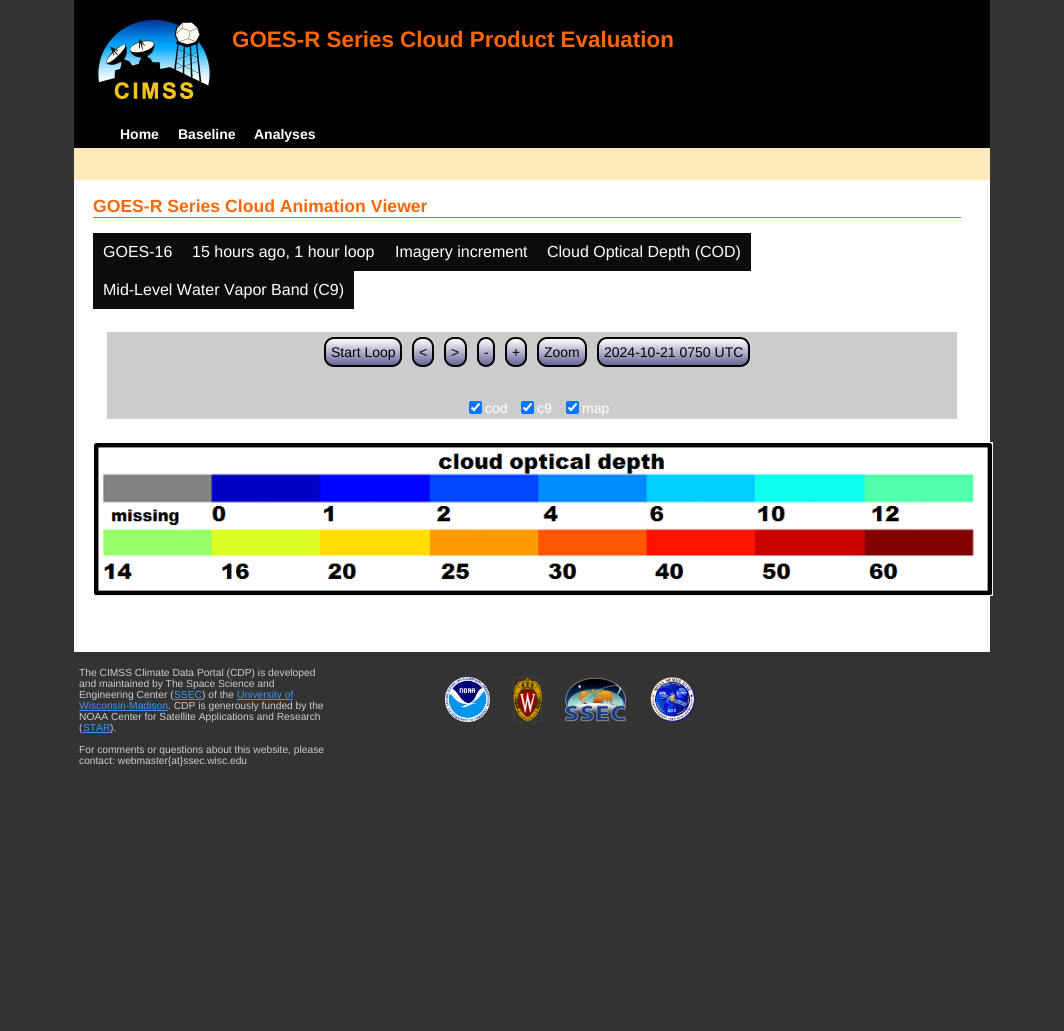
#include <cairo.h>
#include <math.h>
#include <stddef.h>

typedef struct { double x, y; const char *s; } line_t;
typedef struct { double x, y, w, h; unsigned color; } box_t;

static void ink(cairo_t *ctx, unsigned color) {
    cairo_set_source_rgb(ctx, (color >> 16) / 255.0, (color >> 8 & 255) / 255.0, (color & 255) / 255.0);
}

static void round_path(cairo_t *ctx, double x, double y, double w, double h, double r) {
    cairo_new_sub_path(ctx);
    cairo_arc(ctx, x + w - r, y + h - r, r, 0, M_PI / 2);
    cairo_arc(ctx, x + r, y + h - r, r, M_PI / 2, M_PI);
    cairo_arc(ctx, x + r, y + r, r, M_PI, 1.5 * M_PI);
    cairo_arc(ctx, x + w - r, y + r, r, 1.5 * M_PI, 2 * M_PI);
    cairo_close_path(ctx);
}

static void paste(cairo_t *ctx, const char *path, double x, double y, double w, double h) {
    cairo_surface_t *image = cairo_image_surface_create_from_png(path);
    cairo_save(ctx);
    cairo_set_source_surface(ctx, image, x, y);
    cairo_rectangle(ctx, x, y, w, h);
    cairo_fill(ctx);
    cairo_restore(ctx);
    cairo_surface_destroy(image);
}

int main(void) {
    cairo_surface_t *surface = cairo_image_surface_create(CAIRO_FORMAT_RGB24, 1064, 1031);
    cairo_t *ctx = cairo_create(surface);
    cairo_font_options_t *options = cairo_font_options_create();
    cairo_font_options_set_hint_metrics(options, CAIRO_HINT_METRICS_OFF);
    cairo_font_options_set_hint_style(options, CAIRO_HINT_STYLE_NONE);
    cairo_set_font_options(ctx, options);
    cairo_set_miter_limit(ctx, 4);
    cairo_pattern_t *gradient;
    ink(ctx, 0x333333);
    cairo_paint(ctx);
    ink(ctx, 0x000000);
    cairo_rectangle(ctx, 74, 0, 916, 148);
    cairo_fill(ctx);
    paste(ctx, "media/1.png", 96, 19, 116, 80);
    cairo_select_font_face(ctx, "Liberation Sans", CAIRO_FONT_SLANT_NORMAL, CAIRO_FONT_WEIGHT_BOLD);
    cairo_set_font_size(ctx, 22.4);
    ink(ctx, 0xFF6600);
    cairo_move_to(ctx, 232, 47);
    cairo_show_text(ctx, "GOES-R Series Cloud Product Evaluation");
    cairo_set_font_size(ctx, 14);
    ink(ctx, 0xFFFFFF);
    {
        static const line_t items[] = {
            {120, 139, "Home"},
            {178, 139, "Baseline"},
            {254, 139, "Analyses"},
        };
        for (size_t i = 0; i < sizeof items / sizeof *items; i++) {
            cairo_move_to(ctx, items[i].x, items[i].y);
            cairo_show_text(ctx, items[i].s);
        }
    }
    {
        static const box_t items[] = {
            {74, 148, 916, 32, 0xFFE9BB},
            {74, 180, 916, 472, 0xFFFFFF},
            {93, 217, 868, 1, 0xFF6600},
        };
        for (size_t i = 0; i < sizeof items / sizeof *items; i++) {
            ink(ctx, items[i].color);
            cairo_rectangle(ctx, items[i].x, items[i].y, items[i].w, items[i].h);
            cairo_fill(ctx);
        }
    }
    cairo_set_font_size(ctx, 17.6);
    cairo_move_to(ctx, 93, 212);
    cairo_show_text(ctx, "GOES-R Series Cloud Animation Viewer");
    ink(ctx, 0x0C0C0C);
    cairo_rectangle(ctx, 93, 233, 658, 38);
    cairo_fill(ctx);
    cairo_select_font_face(ctx, "Liberation Sans", CAIRO_FONT_SLANT_NORMAL, CAIRO_FONT_WEIGHT_NORMAL);
    cairo_set_font_size(ctx, 16);
    ink(ctx, 0xFFFFFF);
    {
        static const line_t items[] = {
            {103, 257, "GOES-16"},
            {192, 257, "15 hours ago, 1 hour loop"},
            {395, 257, "Imagery increment"},
            {547, 257, "Cloud Optical Depth (COD)"},
        };
        for (size_t i = 0; i < sizeof items / sizeof *items; i++) {
            cairo_move_to(ctx, items[i].x, items[i].y);
            cairo_show_text(ctx, items[i].s);
        }
    }
    ink(ctx, 0x0C0C0C);
    cairo_rectangle(ctx, 93, 271, 261, 38);
    cairo_fill(ctx);
    ink(ctx, 0xFFFFFF);
    cairo_move_to(ctx, 103, 295);
    cairo_show_text(ctx, "Mid-Level Water Vapor Band (C9)");
    ink(ctx, 0xCCCCCC);
    cairo_rectangle(ctx, 107, 332, 850, 40);
    cairo_fill(ctx);
    cairo_save(ctx);
    round_path(ctx, 324, 337, 78, 30, 10);
    cairo_clip(ctx);
    gradient = cairo_pattern_create_linear(363, 339, 363, 365);
    cairo_pattern_add_color_stop_rgba(gradient, 0, 1, 1, 1, 1);
    cairo_pattern_add_color_stop_rgba(gradient, 1, 0.4, 0.4, 0.6, 1);
    cairo_set_source(ctx, gradient);
    cairo_pattern_destroy(gradient);
    cairo_rectangle(ctx, 324, 339, 78, 26);
    cairo_fill(ctx);
    cairo_restore(ctx);
    round_path(ctx, 325, 338, 76, 28, 9);
    ink(ctx, 0x000000);
    cairo_stroke(ctx);
    cairo_set_font_size(ctx, 14);
    cairo_move_to(ctx, 331, 357);
    cairo_show_text(ctx, "Start Loop");
    cairo_save(ctx);
    round_path(ctx, 412, 337, 22, 30, 10);
    cairo_clip(ctx);
    gradient = cairo_pattern_create_linear(423, 339, 423, 365);
    cairo_pattern_add_color_stop_rgba(gradient, 0, 1, 1, 1, 1);
    cairo_pattern_add_color_stop_rgba(gradient, 1, 0.4, 0.4, 0.6, 1);
    cairo_set_source(ctx, gradient);
    cairo_pattern_destroy(gradient);
    cairo_rectangle(ctx, 412, 339, 22, 26);
    cairo_fill(ctx);
    cairo_restore(ctx);
    round_path(ctx, 413, 338, 20, 28, 9);
    cairo_stroke(ctx);
    cairo_move_to(ctx, 419, 357);
    cairo_show_text(ctx, "<");
    cairo_save(ctx);
    round_path(ctx, 444, 337, 23, 30, 10);
    cairo_clip(ctx);
    gradient = cairo_pattern_create_linear(456, 339, 456, 365);
    cairo_pattern_add_color_stop_rgba(gradient, 0, 1, 1, 1, 1);
    cairo_pattern_add_color_stop_rgba(gradient, 1, 0.4, 0.4, 0.6, 1);
    cairo_set_source(ctx, gradient);
    cairo_pattern_destroy(gradient);
    cairo_rectangle(ctx, 444, 339, 23, 26);
    cairo_fill(ctx);
    cairo_restore(ctx);
    round_path(ctx, 445, 338, 21, 28, 9);
    cairo_stroke(ctx);
    cairo_move_to(ctx, 451, 357);
    cairo_show_text(ctx, ">");
    cairo_save(ctx);
    round_path(ctx, 477, 337, 18, 30, 9);
    cairo_clip(ctx);
    gradient = cairo_pattern_create_linear(486, 339, 486, 365);
    cairo_pattern_add_color_stop_rgba(gradient, 0, 1, 1, 1, 1);
    cairo_pattern_add_color_stop_rgba(gradient, 1, 0.4, 0.4, 0.6, 1);
    cairo_set_source(ctx, gradient);
    cairo_pattern_destroy(gradient);
    cairo_rectangle(ctx, 477, 339, 18, 26);
    cairo_fill(ctx);
    cairo_restore(ctx);
    round_path(ctx, 478, 338, 16, 28, 8);
    cairo_stroke(ctx);
    cairo_move_to(ctx, 484, 357);
    cairo_show_text(ctx, "-");
    cairo_save(ctx);
    round_path(ctx, 505, 337, 22, 30, 10);
    cairo_clip(ctx);
    gradient = cairo_pattern_create_linear(516, 339, 516, 365);
    cairo_pattern_add_color_stop_rgba(gradient, 0, 1, 1, 1, 1);
    cairo_pattern_add_color_stop_rgba(gradient, 1, 0.4, 0.4, 0.6, 1);
    cairo_set_source(ctx, gradient);
    cairo_pattern_destroy(gradient);
    cairo_rectangle(ctx, 505, 339, 22, 26);
    cairo_fill(ctx);
    cairo_restore(ctx);
    round_path(ctx, 506, 338, 20, 28, 9);
    cairo_stroke(ctx);
    cairo_move_to(ctx, 512, 357);
    cairo_show_text(ctx, "+");
    cairo_save(ctx);
    round_path(ctx, 537, 337, 50, 30, 10);
    cairo_clip(ctx);
    gradient = cairo_pattern_create_linear(562, 339, 562, 365);
    cairo_pattern_add_color_stop_rgba(gradient, 0, 1, 1, 1, 1);
    cairo_pattern_add_color_stop_rgba(gradient, 1, 0.4, 0.4, 0.6, 1);
    cairo_set_source(ctx, gradient);
    cairo_pattern_destroy(gradient);
    cairo_rectangle(ctx, 537, 339, 50, 26);
    cairo_fill(ctx);
    cairo_restore(ctx);
    round_path(ctx, 538, 338, 48, 28, 9);
    cairo_stroke(ctx);
    cairo_move_to(ctx, 544, 357);
    cairo_show_text(ctx, "Zoom");
    cairo_save(ctx);
    round_path(ctx, 597, 337, 153, 30, 10);
    cairo_clip(ctx);
    gradient = cairo_pattern_create_linear(674, 339, 674, 365);
    cairo_pattern_add_color_stop_rgba(gradient, 0, 1, 1, 1, 1);
    cairo_pattern_add_color_stop_rgba(gradient, 1, 0.4, 0.4, 0.6, 1);
    cairo_set_source(ctx, gradient);
    cairo_pattern_destroy(gradient);
    cairo_rectangle(ctx, 597, 339, 153, 26);
    cairo_fill(ctx);
    cairo_restore(ctx);
    round_path(ctx, 598, 338, 151, 28, 9);
    cairo_stroke(ctx);
    cairo_move_to(ctx, 604, 357);
    cairo_show_text(ctx, "2024-10-21 0750 UTC");
    ink(ctx, 0xCCCCCC);
    cairo_rectangle(ctx, 107, 372, 850, 47);
    cairo_fill(ctx);
    ink(ctx, 0x0075FF);
    round_path(ctx, 469, 401, 13, 13, 2);
    cairo_fill(ctx);
    cairo_new_path(ctx);
    cairo_move_to(ctx, 471.5, 407.5);
    cairo_line_to(ctx, 474, 410);
    cairo_line_to(ctx, 479.5, 403.5);
    ink(ctx, 0xFFFFFF);
    cairo_set_line_width(ctx, 2.1);
    cairo_stroke(ctx);
    cairo_move_to(ctx, 485, 413);
    cairo_show_text(ctx, "cod");
    ink(ctx, 0x0075FF);
    round_path(ctx, 521, 401, 13, 13, 2);
    cairo_fill(ctx);
    cairo_new_path(ctx);
    cairo_move_to(ctx, 523.5, 407.5);
    cairo_line_to(ctx, 526, 410);
    cairo_line_to(ctx, 531.5, 403.5);
    ink(ctx, 0xFFFFFF);
    cairo_stroke(ctx);
    cairo_move_to(ctx, 537, 413);
    cairo_show_text(ctx, "c9");
    ink(ctx, 0x0075FF);
    round_path(ctx, 566, 401, 13, 13, 2);
    cairo_fill(ctx);
    cairo_new_path(ctx);
    cairo_move_to(ctx, 568.5, 407.5);
    cairo_line_to(ctx, 571, 410);
    cairo_line_to(ctx, 576.5, 403.5);
    ink(ctx, 0xFFFFFF);
    cairo_stroke(ctx);
    cairo_move_to(ctx, 582, 413);
    cairo_show_text(ctx, "map");
    paste(ctx, "media/2.png", 94, 442, 899, 154);
    cairo_set_font_size(ctx, 10.25);
    ink(ctx, 0xCCCCCC);
    {
        static const line_t items[] = {
            {79, 676, "The CIMSS Climate Data Portal (CDP) is developed"},
            {79, 687, "and maintained by The Space Science and"},
            {79, 698, "Engineering Center ("},
        };
        for (size_t i = 0; i < sizeof items / sizeof *items; i++) {
            cairo_move_to(ctx, items[i].x, items[i].y);
            cairo_show_text(ctx, items[i].s);
        }
    }
    ink(ctx, 0x3399FF);
    cairo_move_to(ctx, 174, 698);
    cairo_show_text(ctx, "SSEC");
    cairo_rectangle(ctx, 174, 699, 28, 1);
    cairo_fill(ctx);
    ink(ctx, 0xCCCCCC);
    cairo_move_to(ctx, 202, 698);
    cairo_show_text(ctx, ") of the");
    ink(ctx, 0x3399FF);
    cairo_rectangle(ctx, 237, 699, 56, 1);
    cairo_fill(ctx);
    cairo_move_to(ctx, 237, 698);
    cairo_show_text(ctx, "University of");
    cairo_move_to(ctx, 79, 709);
    cairo_show_text(ctx, "Wisconsin-Madison");
    cairo_rectangle(ctx, 79, 710, 89, 1);
    cairo_fill(ctx);
    ink(ctx, 0xCCCCCC);
    {
        static const line_t items[] = {
            {168, 709, ". CDP is generously funded by the"},
            {79, 720, "NOAA Center for Satellite Applications and Research"},
            {79, 731, "("},
        };
        for (size_t i = 0; i < sizeof items / sizeof *items; i++) {
            cairo_move_to(ctx, items[i].x, items[i].y);
            cairo_show_text(ctx, items[i].s);
        }
    }
    ink(ctx, 0x3399FF);
    cairo_move_to(ctx, 83, 731);
    cairo_show_text(ctx, "STAR");
    cairo_rectangle(ctx, 83, 732, 27, 1);
    cairo_fill(ctx);
    ink(ctx, 0xCCCCCC);
    {
        static const line_t items[] = {
            {110, 731, ")."},
            {79, 753, "For comments or questions about this website, please"},
            {79, 764, "contact: webmaster{at}ssec.wisc.edu"},
        };
        for (size_t i = 0; i < sizeof items / sizeof *items; i++) {
            cairo_move_to(ctx, items[i].x, items[i].y);
            cairo_show_text(ctx, items[i].s);
        }
    }
    paste(ctx, "media/3.png", 445, 677, 45, 45);
    paste(ctx, "media/4.png", 513, 677, 29, 45);
    paste(ctx, "media/5.png", 565, 677, 61, 45);
    paste(ctx, "media/6.png", 650, 677, 45, 45);
    cairo_surface_write_to_png(surface, "image.png");
    cairo_font_options_destroy(options);
    cairo_destroy(ctx);
    cairo_surface_destroy(surface);
    return 0;
}
